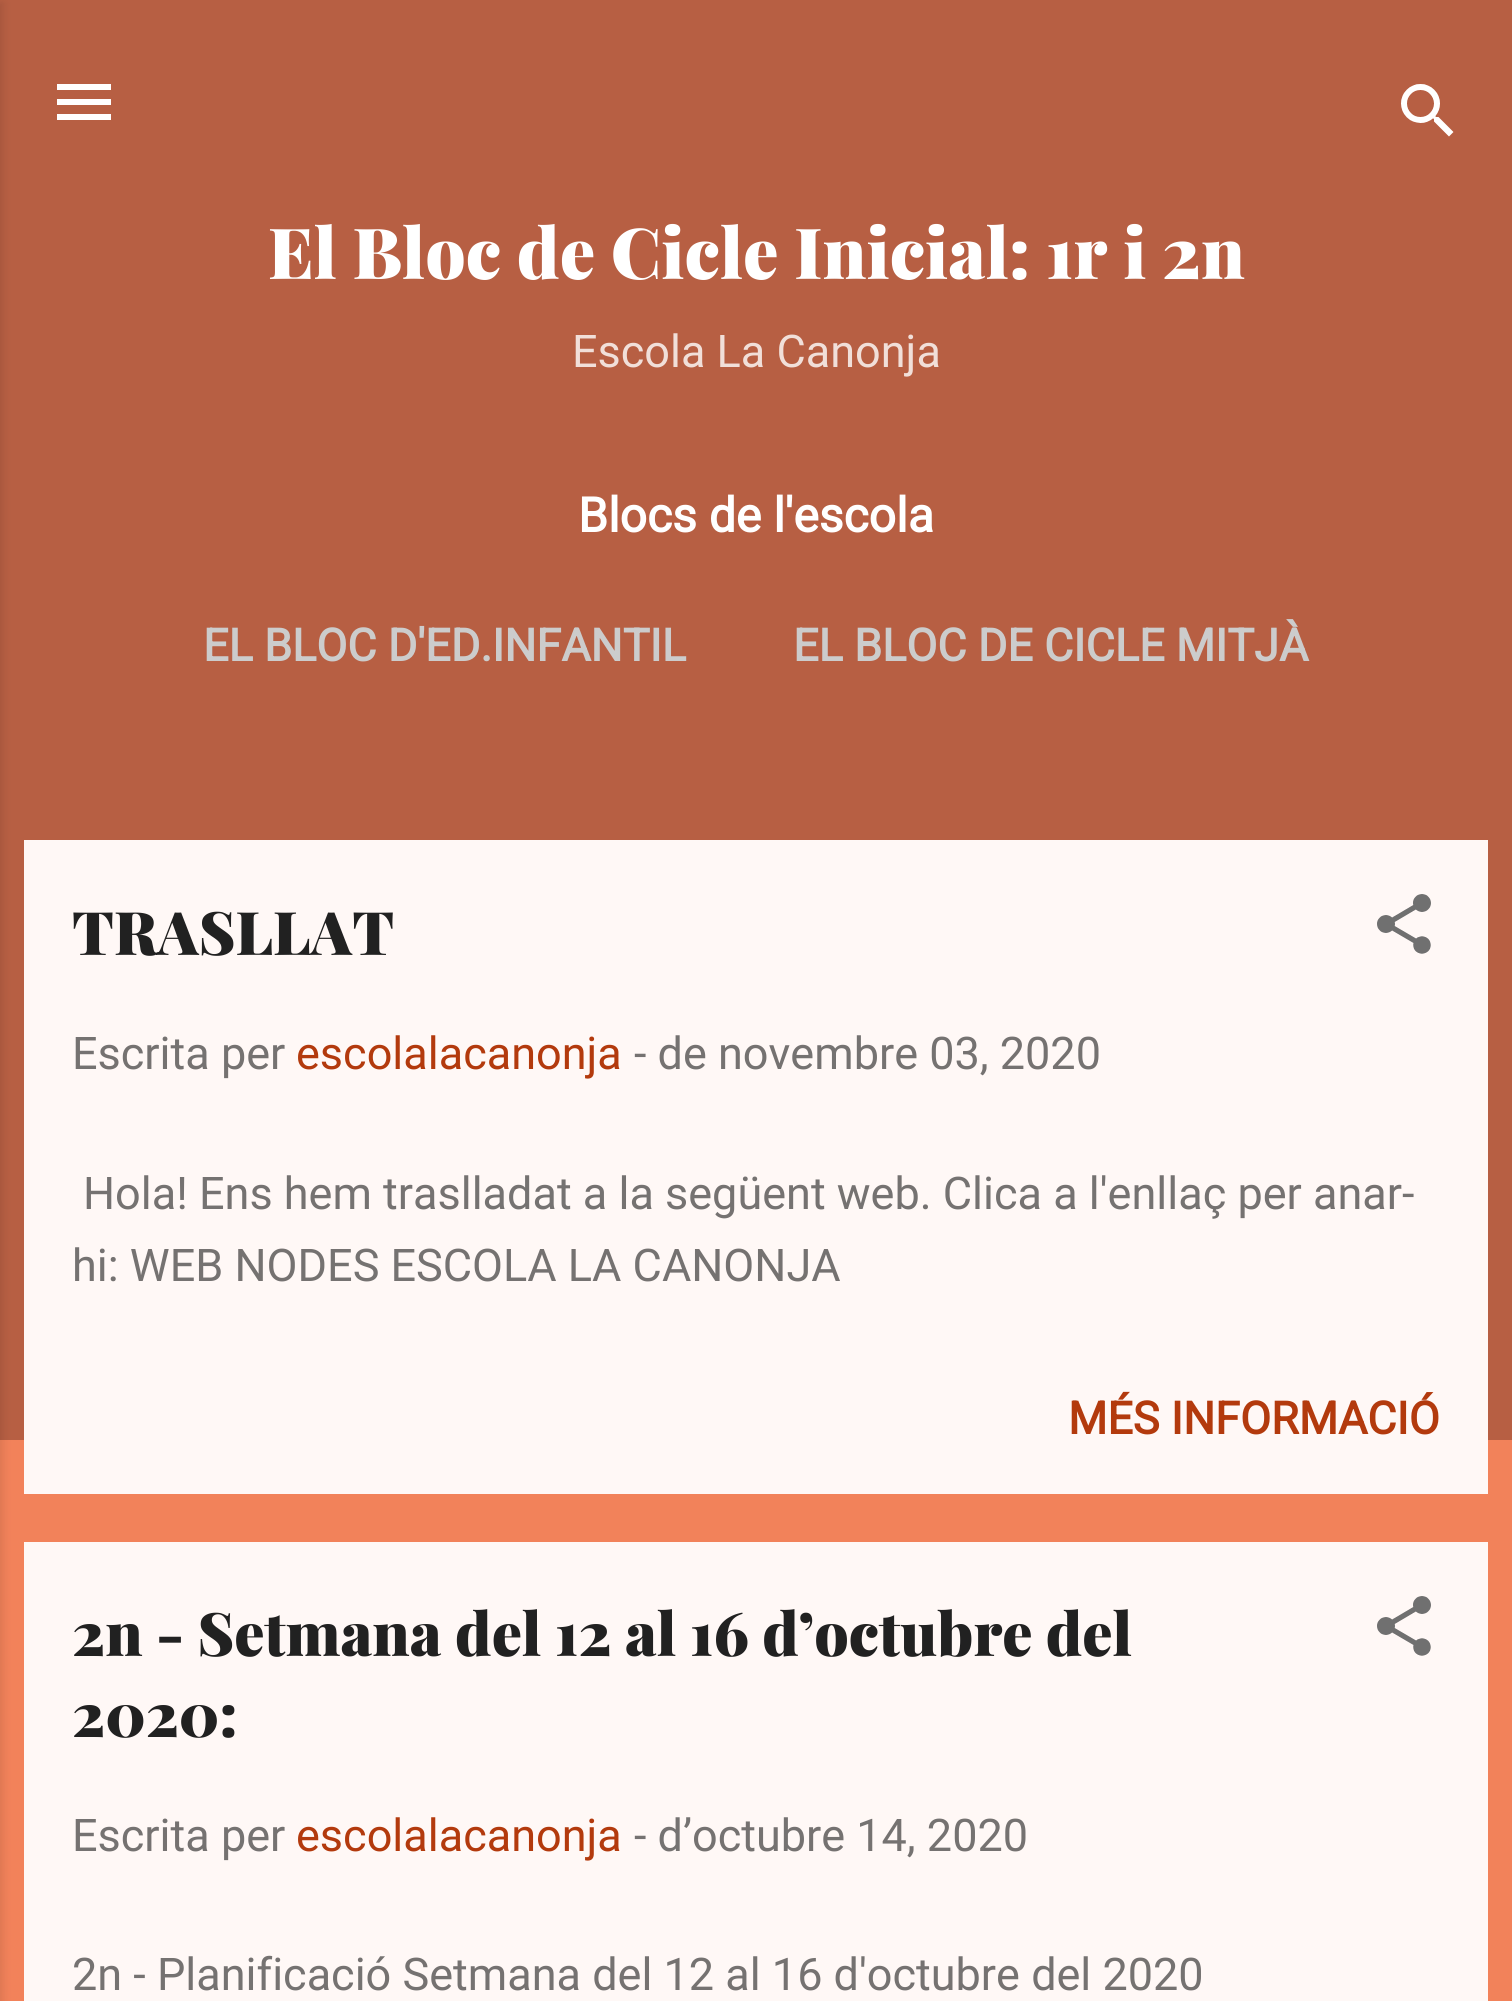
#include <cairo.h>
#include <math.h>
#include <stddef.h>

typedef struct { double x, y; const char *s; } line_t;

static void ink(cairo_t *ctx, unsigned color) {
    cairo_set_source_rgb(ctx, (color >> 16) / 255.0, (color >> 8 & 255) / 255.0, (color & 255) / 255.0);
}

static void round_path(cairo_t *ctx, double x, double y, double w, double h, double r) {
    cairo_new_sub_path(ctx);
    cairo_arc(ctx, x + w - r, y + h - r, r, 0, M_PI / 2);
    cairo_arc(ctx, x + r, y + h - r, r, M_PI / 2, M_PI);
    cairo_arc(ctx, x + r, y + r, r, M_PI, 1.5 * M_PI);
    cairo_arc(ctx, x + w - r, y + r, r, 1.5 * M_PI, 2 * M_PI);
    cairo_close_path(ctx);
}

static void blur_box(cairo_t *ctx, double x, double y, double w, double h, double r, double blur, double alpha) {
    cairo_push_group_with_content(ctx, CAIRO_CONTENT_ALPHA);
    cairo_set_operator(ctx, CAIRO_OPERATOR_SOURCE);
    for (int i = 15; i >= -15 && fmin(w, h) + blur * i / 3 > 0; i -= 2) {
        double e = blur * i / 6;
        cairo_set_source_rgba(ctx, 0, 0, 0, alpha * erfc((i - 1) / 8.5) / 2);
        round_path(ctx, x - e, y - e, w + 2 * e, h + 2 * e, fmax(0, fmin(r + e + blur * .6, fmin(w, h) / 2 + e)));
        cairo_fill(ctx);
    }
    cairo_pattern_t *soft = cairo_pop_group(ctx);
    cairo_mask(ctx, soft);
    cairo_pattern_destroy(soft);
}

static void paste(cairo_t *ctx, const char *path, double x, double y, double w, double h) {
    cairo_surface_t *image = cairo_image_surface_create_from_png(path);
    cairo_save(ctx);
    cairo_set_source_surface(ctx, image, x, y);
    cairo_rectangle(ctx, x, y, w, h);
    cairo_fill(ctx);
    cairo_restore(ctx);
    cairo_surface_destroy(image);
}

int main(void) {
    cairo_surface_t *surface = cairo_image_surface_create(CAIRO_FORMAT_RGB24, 1512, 2001);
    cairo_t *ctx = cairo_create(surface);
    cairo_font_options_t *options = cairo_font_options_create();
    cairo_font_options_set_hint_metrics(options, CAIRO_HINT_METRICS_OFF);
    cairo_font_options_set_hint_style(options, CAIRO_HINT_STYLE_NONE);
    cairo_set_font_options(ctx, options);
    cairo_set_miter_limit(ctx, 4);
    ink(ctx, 0xF2825A);
    cairo_paint(ctx);
    ink(ctx, 0xB75F43);
    cairo_rectangle(ctx, 0, 0, 1512, 1440);
    cairo_fill(ctx);
    ink(ctx, 0x000000);
    blur_box(ctx, -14, 3, 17, 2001, 0, 4.5, 0.1);
    paste(ctx, "media/1.png", 57, 84, 54, 36);
    paste(ctx, "media/2.png", 1401, 84, 53, 53);
    cairo_select_font_face(ctx, "Playfair Display Black", CAIRO_FONT_SLANT_NORMAL, CAIRO_FONT_WEIGHT_NORMAL);
    cairo_set_font_size(ctx, 70.4);
    ink(ctx, 0xFFFFFF);
    cairo_move_to(ctx, 268, 279);
    cairo_show_text(ctx, "El Bloc de Cicle Inicial: 1r i 2n");
    cairo_select_font_face(ctx, "Roboto", CAIRO_FONT_SLANT_NORMAL, CAIRO_FONT_WEIGHT_NORMAL);
    cairo_set_font_size(ctx, 45);
    ink(ctx, 0xF1DFD9);
    cairo_move_to(ctx, 572, 367);
    cairo_show_text(ctx, "Escola La Canonja");
    cairo_select_font_face(ctx, "Roboto", CAIRO_FONT_SLANT_NORMAL, CAIRO_FONT_WEIGHT_BOLD);
    cairo_set_font_size(ctx, 48);
    ink(ctx, 0xFFFFFF);
    cairo_move_to(ctx, 578, 532);
    cairo_show_text(ctx, "Blocs de l'escola");
    cairo_set_font_size(ctx, 45);
    ink(ctx, 0xCCCCCC);
    cairo_move_to(ctx, 203, 661);
    cairo_show_text(ctx, "EL BLOC D'ED.INFANTIL");
    cairo_move_to(ctx, 793, 661);
    cairo_show_text(ctx, "EL BLOC DE CICLE MITJÀ");
    ink(ctx, 0xFFF8F6);
    cairo_rectangle(ctx, 24, 840, 1464, 654);
    cairo_fill(ctx);
    cairo_select_font_face(ctx, "Playfair Display Black", CAIRO_FONT_SLANT_NORMAL, CAIRO_FONT_WEIGHT_NORMAL);
    cairo_set_font_size(ctx, 60);
    ink(ctx, 0x212121);
    cairo_move_to(ctx, 72, 955);
    cairo_show_text(ctx, "TRASLLAT");
    paste(ctx, "media/3.png", 1377, 894, 54, 60);
    cairo_select_font_face(ctx, "Roboto", CAIRO_FONT_SLANT_NORMAL, CAIRO_FONT_WEIGHT_NORMAL);
    cairo_set_font_size(ctx, 45);
    ink(ctx, 0x757271);
    cairo_move_to(ctx, 72, 1069);
    cairo_show_text(ctx, "Escrita per");
    ink(ctx, 0xB33A0D);
    cairo_move_to(ctx, 296, 1069);
    cairo_show_text(ctx, "escolalacanonja");
    ink(ctx, 0x757271);
    {
        static const line_t items[] = {
            {634, 1069, "- de novembre 03, 2020"},
            {83, 1209, "Hola! Ens hem traslladat a la següent web. Clica a l'enllaç per anar-"},
            {72, 1281, "hi: WEB NODES ESCOLA LA CANONJA"},
        };
        for (size_t i = 0; i < sizeof items / sizeof *items; i++) {
            cairo_move_to(ctx, items[i].x, items[i].y);
            cairo_show_text(ctx, items[i].s);
        }
    }
    cairo_select_font_face(ctx, "Roboto", CAIRO_FONT_SLANT_NORMAL, CAIRO_FONT_WEIGHT_BOLD);
    ink(ctx, 0xB33A0D);
    cairo_move_to(ctx, 1068, 1434);
    cairo_show_text(ctx, "MÉS INFORMACIÓ");
    ink(ctx, 0xFFF8F6);
    cairo_rectangle(ctx, 24, 1542, 1464, 459);
    cairo_fill(ctx);
    cairo_select_font_face(ctx, "Playfair Display Black", CAIRO_FONT_SLANT_NORMAL, CAIRO_FONT_WEIGHT_NORMAL);
    cairo_set_font_size(ctx, 60);
    ink(ctx, 0x212121);
    cairo_move_to(ctx, 72, 1656);
    cairo_show_text(ctx, "2n - Setmana del 12 al 16 d’octubre del");
    cairo_move_to(ctx, 72, 1737);
    cairo_show_text(ctx, "2020:");
    paste(ctx, "media/4.png", 1377, 1596, 54, 60);
    cairo_select_font_face(ctx, "Roboto", CAIRO_FONT_SLANT_NORMAL, CAIRO_FONT_WEIGHT_NORMAL);
    cairo_set_font_size(ctx, 45);
    ink(ctx, 0x757271);
    cairo_move_to(ctx, 72, 1851);
    cairo_show_text(ctx, "Escrita per");
    ink(ctx, 0xB33A0D);
    cairo_move_to(ctx, 296, 1851);
    cairo_show_text(ctx, "escolalacanonja");
    ink(ctx, 0x757271);
    cairo_move_to(ctx, 634, 1851);
    cairo_show_text(ctx, "- d’octubre 14, 2020");
    cairo_move_to(ctx, 72, 1990);
    cairo_show_text(ctx, "2n - Planificació Setmana del 12 al 16 d'octubre del 2020");
    cairo_surface_write_to_png(surface, "image.png");
    cairo_font_options_destroy(options);
    cairo_destroy(ctx);
    cairo_surface_destroy(surface);
    return 0;
}
